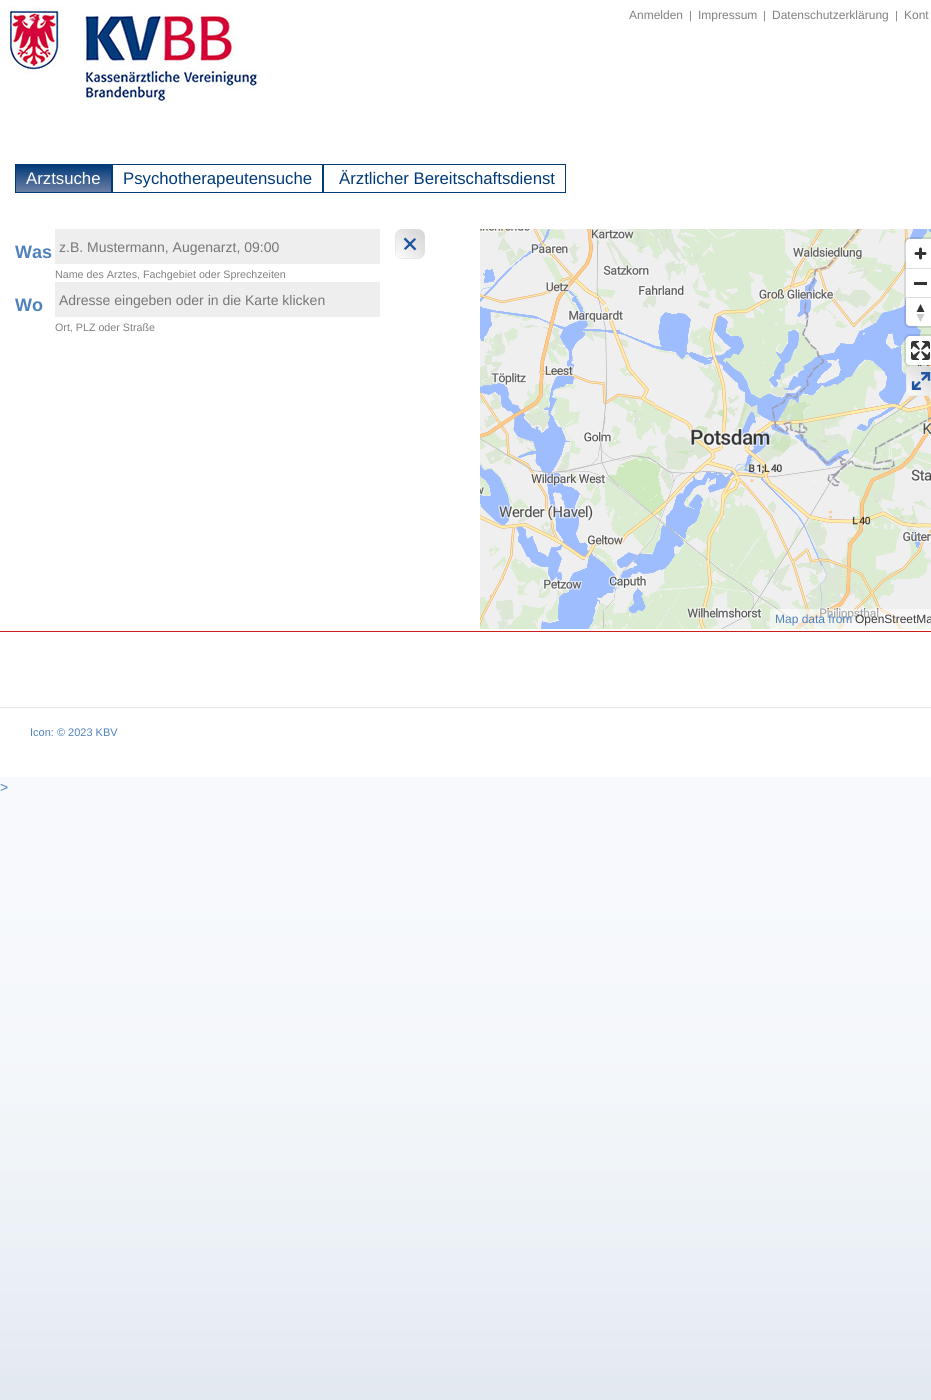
#include <cairo.h>
#include <math.h>
#include <stddef.h>

typedef struct { double x, y, w, h; unsigned color; } box_t;

static void ink(cairo_t *ctx, unsigned color) {
    cairo_set_source_rgb(ctx, (color >> 16) / 255.0, (color >> 8 & 255) / 255.0, (color & 255) / 255.0);
}

static void round_path(cairo_t *ctx, double x, double y, double w, double h, double r) {
    cairo_new_sub_path(ctx);
    cairo_arc(ctx, x + w - r, y + h - r, r, 0, M_PI / 2);
    cairo_arc(ctx, x + r, y + h - r, r, M_PI / 2, M_PI);
    cairo_arc(ctx, x + r, y + r, r, M_PI, 1.5 * M_PI);
    cairo_arc(ctx, x + w - r, y + r, r, 1.5 * M_PI, 2 * M_PI);
    cairo_close_path(ctx);
}

static void paste(cairo_t *ctx, const char *path, double x, double y, double w, double h) {
    cairo_surface_t *image = cairo_image_surface_create_from_png(path);
    cairo_save(ctx);
    cairo_set_source_surface(ctx, image, x, y);
    cairo_rectangle(ctx, x, y, w, h);
    cairo_fill(ctx);
    cairo_restore(ctx);
    cairo_surface_destroy(image);
}

int main(void) {
    cairo_surface_t *surface = cairo_image_surface_create(CAIRO_FORMAT_RGB24, 931, 1400);
    cairo_t *ctx = cairo_create(surface);
    cairo_font_options_t *options = cairo_font_options_create();
    cairo_font_options_set_hint_metrics(options, CAIRO_HINT_METRICS_OFF);
    cairo_font_options_set_hint_style(options, CAIRO_HINT_STYLE_NONE);
    cairo_set_font_options(ctx, options);
    cairo_set_miter_limit(ctx, 4);
    cairo_pattern_t *gradient;
    ink(ctx, 0xFFFFFF);
    cairo_paint(ctx);
    paste(ctx, "media/1.png", 0, 777, 931, 623);
    paste(ctx, "media/2.png", 8, 6, 255, 95);
    cairo_select_font_face(ctx, "Liberation Sans", CAIRO_FONT_SLANT_NORMAL, CAIRO_FONT_WEIGHT_NORMAL);
    cairo_set_font_size(ctx, 12);
    ink(ctx, 0x808080);
    cairo_move_to(ctx, 629, 19);
    cairo_show_text(ctx, "Anmelden");
    cairo_set_font_size(ctx, 11);
    cairo_move_to(ctx, 689, 19);
    cairo_show_text(ctx, "|");
    cairo_set_font_size(ctx, 12);
    cairo_move_to(ctx, 698, 19);
    cairo_show_text(ctx, "Impressum");
    cairo_set_font_size(ctx, 11);
    cairo_move_to(ctx, 763, 19);
    cairo_show_text(ctx, "|");
    cairo_set_font_size(ctx, 12);
    cairo_move_to(ctx, 772, 19);
    cairo_show_text(ctx, "Datenschutzerklärung");
    cairo_set_font_size(ctx, 11);
    cairo_move_to(ctx, 895, 19);
    cairo_show_text(ctx, "|");
    cairo_set_font_size(ctx, 12);
    cairo_move_to(ctx, 904, 19);
    cairo_show_text(ctx, "Kont");
    gradient = cairo_pattern_create_linear(64, 165, 64, 192);
    cairo_pattern_add_color_stop_rgba(gradient, 0, 0, 0.227, 0.475, 1);
    cairo_pattern_add_color_stop_rgba(gradient, 1, 0.42, 0.498, 0.643, 1);
    cairo_set_source(ctx, gradient);
    cairo_pattern_destroy(gradient);
    cairo_rectangle(ctx, 16, 165, 95, 27);
    cairo_fill(ctx);
    cairo_rectangle(ctx, 15.5, 164.5, 96, 28);
    ink(ctx, 0x003A79);
    cairo_set_line_width(ctx, 1);
    cairo_stroke(ctx);
    cairo_set_font_size(ctx, 16.75);
    ink(ctx, 0xFFFFFF);
    cairo_move_to(ctx, 26, 184);
    cairo_show_text(ctx, "Arztsuche");
    cairo_rectangle(ctx, 112.5, 164.5, 210, 28);
    ink(ctx, 0x003A79);
    cairo_stroke(ctx);
    cairo_move_to(ctx, 123, 184);
    cairo_show_text(ctx, "Psychotherapeutensuche");
    cairo_rectangle(ctx, 323.5, 164.5, 242, 28);
    cairo_stroke(ctx);
    cairo_move_to(ctx, 339, 184);
    cairo_show_text(ctx, "Ärztlicher Bereitschaftsdienst");
    cairo_select_font_face(ctx, "Liberation Sans", CAIRO_FONT_SLANT_NORMAL, CAIRO_FONT_WEIGHT_BOLD);
    cairo_set_font_size(ctx, 18);
    ink(ctx, 0x4F81BD);
    cairo_move_to(ctx, 15, 258);
    cairo_show_text(ctx, "Was");
    ink(ctx, 0xEEEEEE);
    cairo_rectangle(ctx, 55, 229, 325, 35);
    cairo_fill(ctx);
    cairo_select_font_face(ctx, "Liberation Sans", CAIRO_FONT_SLANT_NORMAL, CAIRO_FONT_WEIGHT_NORMAL);
    cairo_set_font_size(ctx, 14);
    ink(ctx, 0x777777);
    cairo_move_to(ctx, 59, 252);
    cairo_show_text(ctx, "z.B. Mustermann, Augenarzt, 09:00");
    paste(ctx, "media/3.png", 395, 229, 30, 30);
    cairo_set_font_size(ctx, 10.7);
    ink(ctx, 0x808080);
    cairo_move_to(ctx, 55, 278);
    cairo_show_text(ctx, "Name des Arztes, Fachgebiet oder Sprechzeiten");
    cairo_select_font_face(ctx, "Liberation Sans", CAIRO_FONT_SLANT_NORMAL, CAIRO_FONT_WEIGHT_BOLD);
    cairo_set_font_size(ctx, 18);
    ink(ctx, 0x4F81BD);
    cairo_move_to(ctx, 15, 311);
    cairo_show_text(ctx, "Wo");
    ink(ctx, 0xEEEEEE);
    cairo_rectangle(ctx, 55, 282, 325, 35);
    cairo_fill(ctx);
    cairo_select_font_face(ctx, "Liberation Sans", CAIRO_FONT_SLANT_NORMAL, CAIRO_FONT_WEIGHT_NORMAL);
    cairo_set_font_size(ctx, 14);
    ink(ctx, 0x777777);
    cairo_move_to(ctx, 59, 305);
    cairo_show_text(ctx, "Adresse eingeben oder in die Karte klicken");
    cairo_set_font_size(ctx, 10.7);
    ink(ctx, 0x808080);
    cairo_move_to(ctx, 55, 331);
    cairo_show_text(ctx, "Ort, PLZ oder Straße");
    paste(ctx, "media/4.png", 480, 229, 451, 400);
    round_path(ctx, 905, 335, 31, 31, 5);
    cairo_set_source_rgba(ctx, 0, 0, 0, 0.1);
    cairo_set_line_width(ctx, 2);
    cairo_stroke(ctx);
    paste(ctx, "media/5.png", 906, 366, 25, 30);
    round_path(ctx, 905, 238, 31, 89, 5);
    cairo_stroke(ctx);
    ink(ctx, 0xFFFFFF);
    round_path(ctx, 906, 239, 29, 87, 4);
    cairo_fill(ctx);
    paste(ctx, "media/6.png", 914, 247, 13, 13);
    {
        static const box_t items[] = {
            {906, 268, 25, 1, 0xDDDDDD},
            {914, 282, 13, 3, 0x333333},
            {906, 297, 25, 1, 0xDDDDDD},
        };
        for (size_t i = 0; i < sizeof items / sizeof *items; i++) {
            ink(ctx, items[i].color);
            cairo_rectangle(ctx, items[i].x, items[i].y, items[i].w, items[i].h);
            cairo_fill(ctx);
        }
    }
    paste(ctx, "media/7.png", 916, 304, 9, 18);
    ink(ctx, 0xFFFFFF);
    round_path(ctx, 906, 336, 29, 29, 4);
    cairo_fill(ctx);
    paste(ctx, "media/8.png", 911, 341, 19, 19);
    cairo_set_source_rgba(ctx, 1, 1, 1, 0.5);
    cairo_rectangle(ctx, 770, 609, 161, 20);
    cairo_fill(ctx);
    cairo_set_font_size(ctx, 12);
    ink(ctx, 0x4F81BD);
    cairo_move_to(ctx, 775, 623);
    cairo_show_text(ctx, "Map data from");
    ink(ctx, 0x3D3D3C);
    cairo_move_to(ctx, 855, 623);
    cairo_show_text(ctx, "OpenStreetMa");
    ink(ctx, 0xCC1D1C);
    cairo_rectangle(ctx, 0, 631, 931, 1);
    cairo_fill(ctx);
    ink(ctx, 0xE6E6E6);
    cairo_rectangle(ctx, 0, 707, 931, 1);
    cairo_fill(ctx);
    cairo_set_font_size(ctx, 11);
    ink(ctx, 0x4F81BD);
    cairo_move_to(ctx, 30, 736);
    cairo_show_text(ctx, "Icon: © 2023 KBV");
    cairo_set_font_size(ctx, 14);
    cairo_move_to(ctx, 0, 792);
    cairo_show_text(ctx, ">");
    cairo_surface_write_to_png(surface, "image.png");
    cairo_font_options_destroy(options);
    cairo_destroy(ctx);
    cairo_surface_destroy(surface);
    return 0;
}
